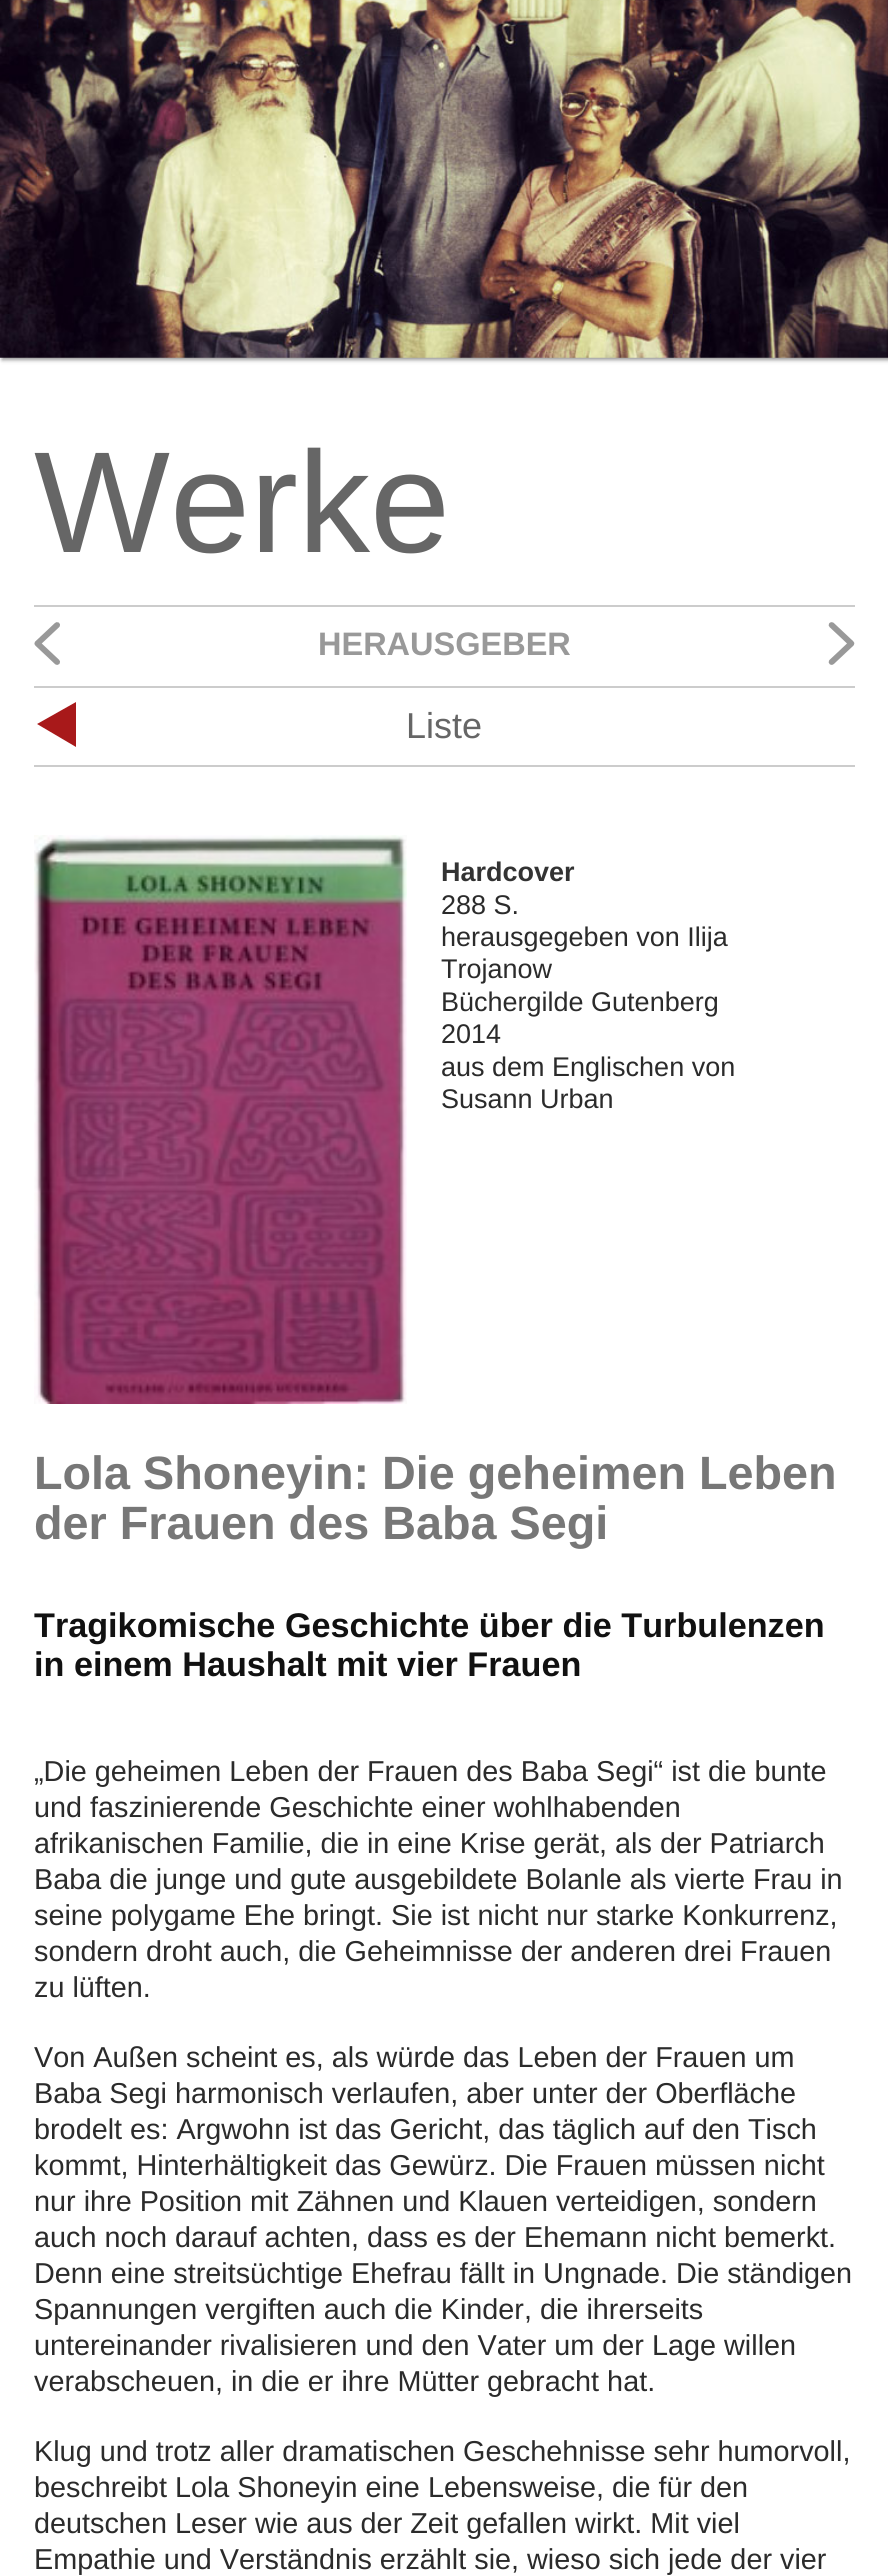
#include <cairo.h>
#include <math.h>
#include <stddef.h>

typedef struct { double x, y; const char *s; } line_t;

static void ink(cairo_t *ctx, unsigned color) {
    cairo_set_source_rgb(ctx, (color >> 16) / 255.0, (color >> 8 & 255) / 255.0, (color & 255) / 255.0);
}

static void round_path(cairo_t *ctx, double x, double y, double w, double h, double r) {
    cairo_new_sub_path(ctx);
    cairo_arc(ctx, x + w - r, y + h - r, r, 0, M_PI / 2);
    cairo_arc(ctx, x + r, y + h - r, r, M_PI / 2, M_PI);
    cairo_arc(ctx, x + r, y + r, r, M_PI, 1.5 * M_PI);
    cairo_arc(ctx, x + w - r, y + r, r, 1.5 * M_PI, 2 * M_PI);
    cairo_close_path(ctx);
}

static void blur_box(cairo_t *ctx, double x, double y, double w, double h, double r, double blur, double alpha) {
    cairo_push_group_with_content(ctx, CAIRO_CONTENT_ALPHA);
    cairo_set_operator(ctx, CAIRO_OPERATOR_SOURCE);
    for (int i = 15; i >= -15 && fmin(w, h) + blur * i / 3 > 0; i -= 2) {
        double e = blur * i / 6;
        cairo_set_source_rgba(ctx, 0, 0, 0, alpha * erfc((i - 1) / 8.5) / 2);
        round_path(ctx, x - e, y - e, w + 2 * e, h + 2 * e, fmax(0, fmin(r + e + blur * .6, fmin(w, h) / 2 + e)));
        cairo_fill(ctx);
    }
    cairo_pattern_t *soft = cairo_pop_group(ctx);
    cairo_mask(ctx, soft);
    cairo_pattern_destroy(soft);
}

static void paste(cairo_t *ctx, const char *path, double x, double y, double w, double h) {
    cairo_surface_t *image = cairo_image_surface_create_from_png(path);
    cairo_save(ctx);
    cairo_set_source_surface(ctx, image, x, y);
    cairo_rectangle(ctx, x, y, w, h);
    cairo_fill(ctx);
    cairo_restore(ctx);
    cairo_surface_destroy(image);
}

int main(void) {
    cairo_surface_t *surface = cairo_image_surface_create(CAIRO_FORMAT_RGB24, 888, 2575);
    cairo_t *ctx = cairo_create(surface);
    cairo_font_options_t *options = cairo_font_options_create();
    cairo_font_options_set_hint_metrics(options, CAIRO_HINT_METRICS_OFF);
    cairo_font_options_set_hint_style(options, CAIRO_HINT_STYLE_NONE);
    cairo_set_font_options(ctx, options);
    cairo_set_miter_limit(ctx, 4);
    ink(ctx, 0xFFFFFF);
    cairo_paint(ctx);
    ink(ctx, 0x000000);
    blur_box(ctx, 2, -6, 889, 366, 0, 2, 0.4);
    paste(ctx, "media/1.png", 0, 0, 888, 358);
    ink(ctx, 0xCCCCCC);
    cairo_rectangle(ctx, 34, 605, 821, 2);
    cairo_fill(ctx);
    cairo_select_font_face(ctx, "Liberation Sans", CAIRO_FONT_SLANT_NORMAL, CAIRO_FONT_WEIGHT_NORMAL);
    cairo_set_font_size(ctx, 144);
    ink(ctx, 0x666666);
    cairo_move_to(ctx, 34, 552);
    cairo_show_text(ctx, "Werke");
    ink(ctx, 0xCCCCCC);
    cairo_rectangle(ctx, 34, 686, 821, 2);
    cairo_fill(ctx);
    paste(ctx, "media/2.png", 34, 622, 26, 43);
    cairo_select_font_face(ctx, "Liberation Sans", CAIRO_FONT_SLANT_NORMAL, CAIRO_FONT_WEIGHT_BOLD);
    cairo_set_font_size(ctx, 32.5);
    ink(ctx, 0x999999);
    cairo_move_to(ctx, 318, 655);
    cairo_show_text(ctx, "HERAUSGEBER");
    paste(ctx, "media/3.png", 828, 622, 27, 43);
    ink(ctx, 0xA8191A);
    cairo_new_path(ctx);
    cairo_move_to(ctx, 76, 747);
    cairo_line_to(ctx, 37, 724);
    cairo_line_to(ctx, 76, 702);
    cairo_close_path(ctx);
    cairo_fill(ctx);
    ink(ctx, 0xCCCCCC);
    cairo_rectangle(ctx, 34, 765, 821, 2);
    cairo_fill(ctx);
    cairo_select_font_face(ctx, "Liberation Sans", CAIRO_FONT_SLANT_NORMAL, CAIRO_FONT_WEIGHT_NORMAL);
    cairo_set_font_size(ctx, 36);
    ink(ctx, 0x666666);
    cairo_move_to(ctx, 406, 738);
    cairo_show_text(ctx, "Liste");
    paste(ctx, "media/4.png", 34, 835, 373, 569);
    cairo_select_font_face(ctx, "Liberation Sans", CAIRO_FONT_SLANT_NORMAL, CAIRO_FONT_WEIGHT_BOLD);
    cairo_set_font_size(ctx, 27);
    ink(ctx, 0x333333);
    cairo_move_to(ctx, 441, 881);
    cairo_show_text(ctx, "Hardcover");
    cairo_select_font_face(ctx, "Liberation Sans", CAIRO_FONT_SLANT_NORMAL, CAIRO_FONT_WEIGHT_NORMAL);
    ink(ctx, 0x2B2B2B);
    {
        static const line_t items[] = {
            {441, 914, "288 S."},
            {441, 946, "herausgegeben von Ilija"},
            {441, 978, "Trojanow"},
            {441, 1011, "Büchergilde Gutenberg"},
            {441, 1043, "2014"},
            {441, 1076, "aus dem Englischen von"},
            {441, 1108, "Susann Urban"},
        };
        for (size_t i = 0; i < sizeof items / sizeof *items; i++) {
            cairo_move_to(ctx, items[i].x, items[i].y);
            cairo_show_text(ctx, items[i].s);
        }
    }
    cairo_select_font_face(ctx, "Liberation Sans", CAIRO_FONT_SLANT_NORMAL, CAIRO_FONT_WEIGHT_BOLD);
    cairo_set_font_size(ctx, 46.75);
    ink(ctx, 0x777777);
    cairo_move_to(ctx, 34, 1489);
    cairo_show_text(ctx, "Lola Shoneyin: Die geheimen Leben");
    cairo_move_to(ctx, 34, 1539);
    cairo_show_text(ctx, "der Frauen des Baba Segi");
    cairo_set_font_size(ctx, 34.2);
    ink(ctx, 0x111111);
    cairo_move_to(ctx, 34, 1637);
    cairo_show_text(ctx, "Tragikomische Geschichte über die Turbulenzen");
    cairo_move_to(ctx, 34, 1676);
    cairo_show_text(ctx, "in einem Haushalt mit vier Frauen");
    cairo_select_font_face(ctx, "Liberation Sans", CAIRO_FONT_SLANT_NORMAL, CAIRO_FONT_WEIGHT_NORMAL);
    cairo_set_font_size(ctx, 28.8);
    ink(ctx, 0x2B2B2B);
    {
        static const line_t items[] = {
            {34, 1781, "„Die geheimen Leben der Frauen des Baba Segi“ ist die bunte"},
            {34, 1817, "und faszinierende Geschichte einer wohlhabenden"},
            {34, 1853, "afrikanischen Familie, die in eine Krise gerät, als der Patriarch"},
            {34, 1889, "Baba die junge und gute ausgebildete Bolanle als vierte Frau in"},
            {34, 1925, "seine polygame Ehe bringt. Sie ist nicht nur starke Konkurrenz,"},
            {34, 1961, "sondern droht auch, die Geheimnisse der anderen drei Frauen"},
            {34, 1997, "zu lüften."},
            {34, 2067, "Von Außen scheint es, als würde das Leben der Frauen um"},
            {34, 2103, "Baba Segi harmonisch verlaufen, aber unter der Oberfläche"},
            {34, 2139, "brodelt es: Argwohn ist das Gericht, das täglich auf den Tisch"},
            {34, 2175, "kommt, Hinterhältigkeit das Gewürz. Die Frauen müssen nicht"},
            {34, 2211, "nur ihre Position mit Zähnen und Klauen verteidigen, sondern"},
            {34, 2247, "auch noch darauf achten, dass es der Ehemann nicht bemerkt."},
            {34, 2283, "Denn eine streitsüchtige Ehefrau fällt in Ungnade. Die ständigen"},
            {34, 2319, "Spannungen vergiften auch die Kinder, die ihrerseits"},
            {34, 2355, "untereinander rivalisieren und den Vater um der Lage willen"},
            {34, 2391, "verabscheuen, in die er ihre Mütter gebracht hat."},
            {34, 2461, "Klug und trotz aller dramatischen Geschehnisse sehr humorvoll,"},
            {34, 2497, "beschreibt Lola Shoneyin eine Lebensweise, die für den"},
            {34, 2533, "deutschen Leser wie aus der Zeit gefallen wirkt. Mit viel"},
            {34, 2569, "Empathie und Verständnis erzählt sie, wieso sich jede der vier"},
        };
        for (size_t i = 0; i < sizeof items / sizeof *items; i++) {
            cairo_move_to(ctx, items[i].x, items[i].y);
            cairo_show_text(ctx, items[i].s);
        }
    }
    cairo_surface_write_to_png(surface, "image.png");
    cairo_font_options_destroy(options);
    cairo_destroy(ctx);
    cairo_surface_destroy(surface);
    return 0;
}
